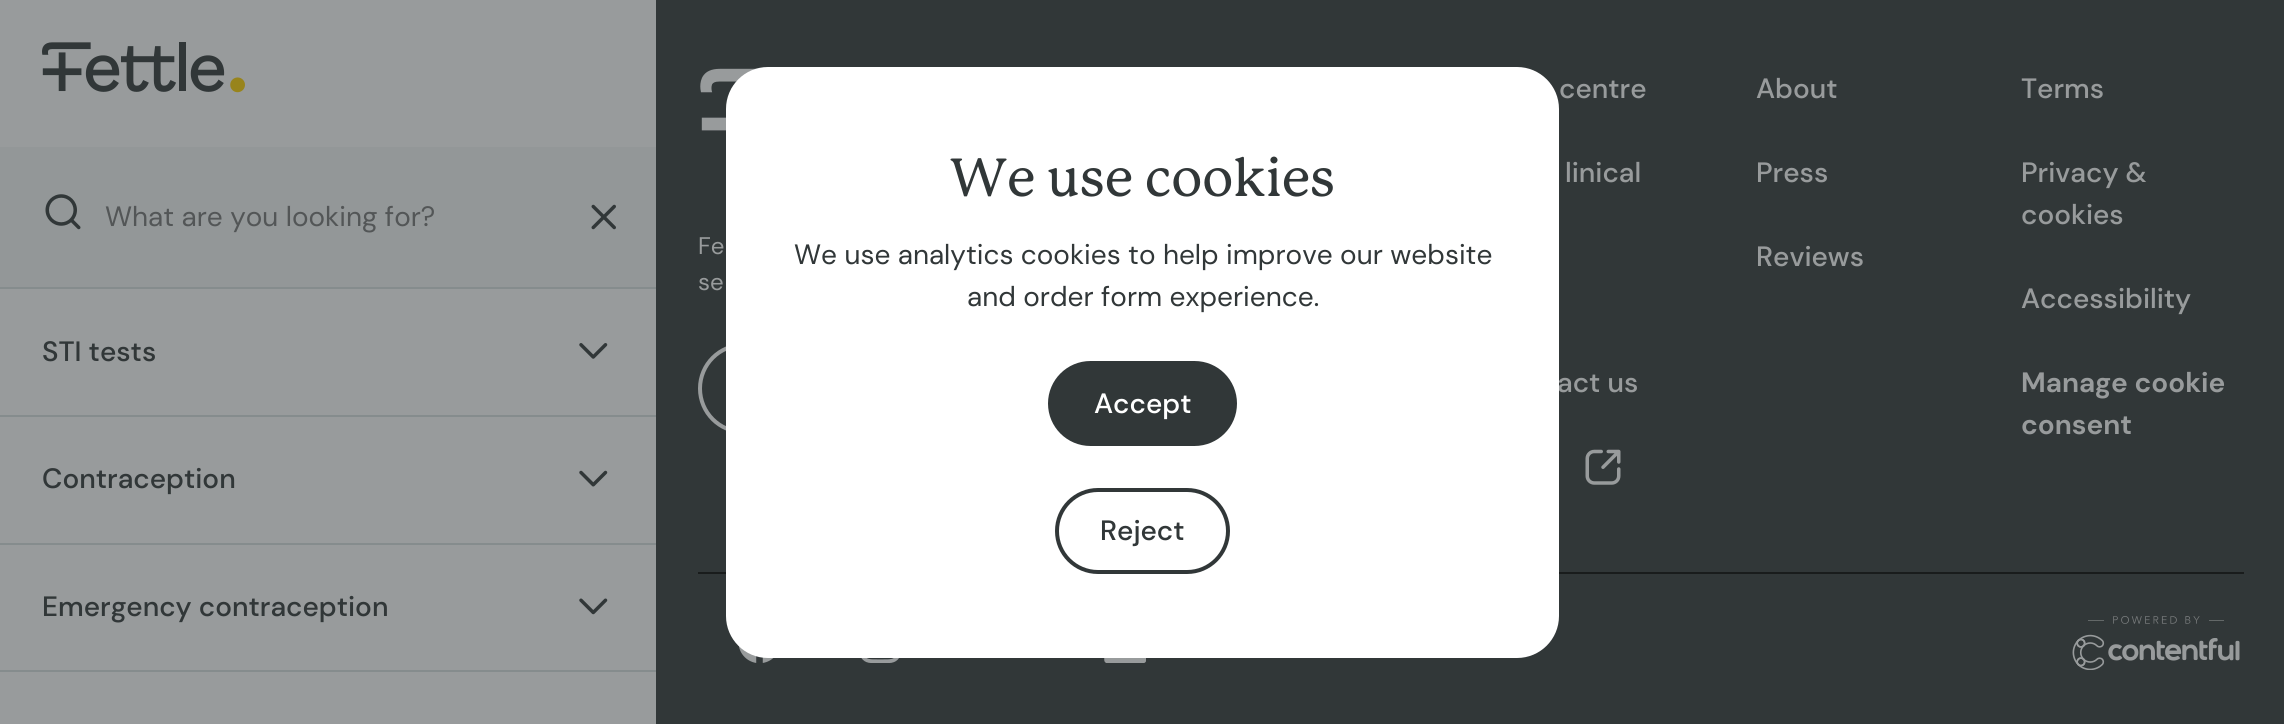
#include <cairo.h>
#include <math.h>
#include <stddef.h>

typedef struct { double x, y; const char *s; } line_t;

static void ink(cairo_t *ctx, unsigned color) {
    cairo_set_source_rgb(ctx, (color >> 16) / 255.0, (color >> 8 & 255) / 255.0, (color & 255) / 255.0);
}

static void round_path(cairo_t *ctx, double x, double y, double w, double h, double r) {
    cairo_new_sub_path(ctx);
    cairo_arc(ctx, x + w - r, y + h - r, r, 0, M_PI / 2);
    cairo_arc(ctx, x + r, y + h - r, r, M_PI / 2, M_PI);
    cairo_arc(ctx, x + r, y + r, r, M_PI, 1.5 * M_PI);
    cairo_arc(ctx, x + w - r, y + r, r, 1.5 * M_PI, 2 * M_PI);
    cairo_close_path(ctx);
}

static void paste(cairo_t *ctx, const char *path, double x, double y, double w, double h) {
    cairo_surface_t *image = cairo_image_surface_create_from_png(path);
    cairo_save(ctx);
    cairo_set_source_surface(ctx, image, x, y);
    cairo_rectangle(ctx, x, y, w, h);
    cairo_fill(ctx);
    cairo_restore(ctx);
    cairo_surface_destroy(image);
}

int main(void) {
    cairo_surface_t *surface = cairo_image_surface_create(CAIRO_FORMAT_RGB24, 2284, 724);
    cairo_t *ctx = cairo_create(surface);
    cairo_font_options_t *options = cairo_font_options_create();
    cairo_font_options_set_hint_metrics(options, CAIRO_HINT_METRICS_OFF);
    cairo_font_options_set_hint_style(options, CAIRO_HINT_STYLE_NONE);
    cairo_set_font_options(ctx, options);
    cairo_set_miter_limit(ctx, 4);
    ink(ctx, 0x989B9C);
    cairo_paint(ctx);
    ink(ctx, 0x313738);
    cairo_rectangle(ctx, 656, 0, 1628, 724);
    cairo_fill(ctx);
    paste(ctx, "media/1.png", 700, 68, 59, 63);
    cairo_select_font_face(ctx, "DM Sans", CAIRO_FONT_SLANT_NORMAL, CAIRO_FONT_WEIGHT_NORMAL);
    cairo_set_font_size(ctx, 24);
    ink(ctx, 0x989B9C);
    cairo_move_to(ctx, 698, 254);
    cairo_show_text(ctx, "Fe");
    cairo_move_to(ctx, 698, 290);
    cairo_show_text(ctx, "se");
    round_path(ctx, 700, 345, 331, 87, 43.5);
    cairo_set_line_width(ctx, 4);
    cairo_stroke(ctx);
    cairo_select_font_face(ctx, "DM Sans Medium", CAIRO_FONT_SLANT_NORMAL, CAIRO_FONT_WEIGHT_NORMAL);
    cairo_set_font_size(ctx, 28);
    {
        static const line_t items[] = {
            {1559, 98, "centre"},
            {1565, 182, "linical"},
            {1557, 392, "act us"},
        };
        for (size_t i = 0; i < sizeof items / sizeof *items; i++) {
            cairo_move_to(ctx, items[i].x, items[i].y);
            cairo_show_text(ctx, items[i].s);
        }
    }
    paste(ctx, "media/2.png", 1585, 449, 36, 36);
    {
        static const line_t items[] = {
            {1756, 98, "About"},
            {1756, 182, "Press"},
            {1756, 266, "Reviews"},
            {2021, 98, "Terms"},
            {2021, 182, "Privacy &"},
            {2021, 224, "cookies"},
            {2021, 308, "Accessibility"},
        };
        for (size_t i = 0; i < sizeof items / sizeof *items; i++) {
            cairo_move_to(ctx, items[i].x, items[i].y);
            cairo_show_text(ctx, items[i].s);
        }
    }
    cairo_select_font_face(ctx, "DM Sans", CAIRO_FONT_SLANT_NORMAL, CAIRO_FONT_WEIGHT_BOLD);
    cairo_move_to(ctx, 2021, 392);
    cairo_show_text(ctx, "Manage cookie");
    cairo_move_to(ctx, 2021, 434);
    cairo_show_text(ctx, "consent");
    ink(ctx, 0x191C1C);
    cairo_rectangle(ctx, 698, 572, 1546, 2);
    cairo_fill(ctx);
    paste(ctx, "media/3.png", 739, 646, 35, 17);
    paste(ctx, "media/4.png", 861, 658, 38, 5);
    paste(ctx, "media/5.png", 1104, 658, 42, 5);
    paste(ctx, "media/6.png", 2072, 616, 168, 54);
    paste(ctx, "media/7.png", 42, 42, 203, 51);
    ink(ctx, 0x939798);
    cairo_rectangle(ctx, 0, 147, 656, 140);
    cairo_fill(ctx);
    paste(ctx, "media/8.png", 45, 194, 36, 36);
    cairo_select_font_face(ctx, "DM Sans", CAIRO_FONT_SLANT_NORMAL, CAIRO_FONT_WEIGHT_NORMAL);
    ink(ctx, 0x535657);
    cairo_move_to(ctx, 105, 226);
    cairo_show_text(ctx, "What are you looking for?");
    paste(ctx, "media/9.png", 591, 204, 25, 26);
    ink(ctx, 0x858C8D);
    cairo_rectangle(ctx, 0, 287, 656, 2);
    cairo_fill(ctx);
    cairo_select_font_face(ctx, "DM Sans Medium", CAIRO_FONT_SLANT_NORMAL, CAIRO_FONT_WEIGHT_NORMAL);
    ink(ctx, 0x313738);
    cairo_move_to(ctx, 42, 361);
    cairo_show_text(ctx, "STI tests");
    paste(ctx, "media/10.png", 579, 343, 29, 16);
    ink(ctx, 0x858C8D);
    cairo_rectangle(ctx, 0, 415, 656, 2);
    cairo_fill(ctx);
    ink(ctx, 0x313738);
    cairo_move_to(ctx, 42, 488);
    cairo_show_text(ctx, "Contraception");
    paste(ctx, "media/11.png", 579, 470, 29, 17);
    ink(ctx, 0x858C8D);
    cairo_rectangle(ctx, 0, 543, 656, 2);
    cairo_fill(ctx);
    ink(ctx, 0x313738);
    cairo_move_to(ctx, 42, 616);
    cairo_show_text(ctx, "Emergency contraception");
    paste(ctx, "media/12.png", 579, 598, 29, 17);
    ink(ctx, 0x858C8D);
    cairo_rectangle(ctx, 0, 670, 656, 2);
    cairo_fill(ctx);
    ink(ctx, 0xFFFFFF);
    round_path(ctx, 726, 67, 833, 591, 42);
    cairo_fill(ctx);
    cairo_select_font_face(ctx, "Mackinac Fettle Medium", CAIRO_FONT_SLANT_NORMAL, CAIRO_FONT_WEIGHT_NORMAL);
    cairo_set_font_size(ctx, 52.5);
    ink(ctx, 0x313738);
    cairo_move_to(ctx, 950, 196);
    cairo_show_text(ctx, "We use cookies");
    cairo_select_font_face(ctx, "DM Sans", CAIRO_FONT_SLANT_NORMAL, CAIRO_FONT_WEIGHT_NORMAL);
    cairo_set_font_size(ctx, 28);
    cairo_move_to(ctx, 794, 264);
    cairo_show_text(ctx, "We use analytics cookies to help improve our website");
    cairo_move_to(ctx, 967, 306);
    cairo_show_text(ctx, "and order form experience.");
    round_path(ctx, 1050, 363, 185, 81, 40.5);
    cairo_fill_preserve(ctx);
    cairo_stroke(ctx);
    cairo_select_font_face(ctx, "DM Sans Medium", CAIRO_FONT_SLANT_NORMAL, CAIRO_FONT_WEIGHT_NORMAL);
    ink(ctx, 0xFFFFFF);
    cairo_move_to(ctx, 1094, 413);
    cairo_show_text(ctx, "Accept");
    round_path(ctx, 1057, 490, 171, 82, 41);
    ink(ctx, 0x313738);
    cairo_stroke(ctx);
    cairo_move_to(ctx, 1100, 540);
    cairo_show_text(ctx, "Reject");
    cairo_surface_write_to_png(surface, "image.png");
    cairo_font_options_destroy(options);
    cairo_destroy(ctx);
    cairo_surface_destroy(surface);
    return 0;
}
